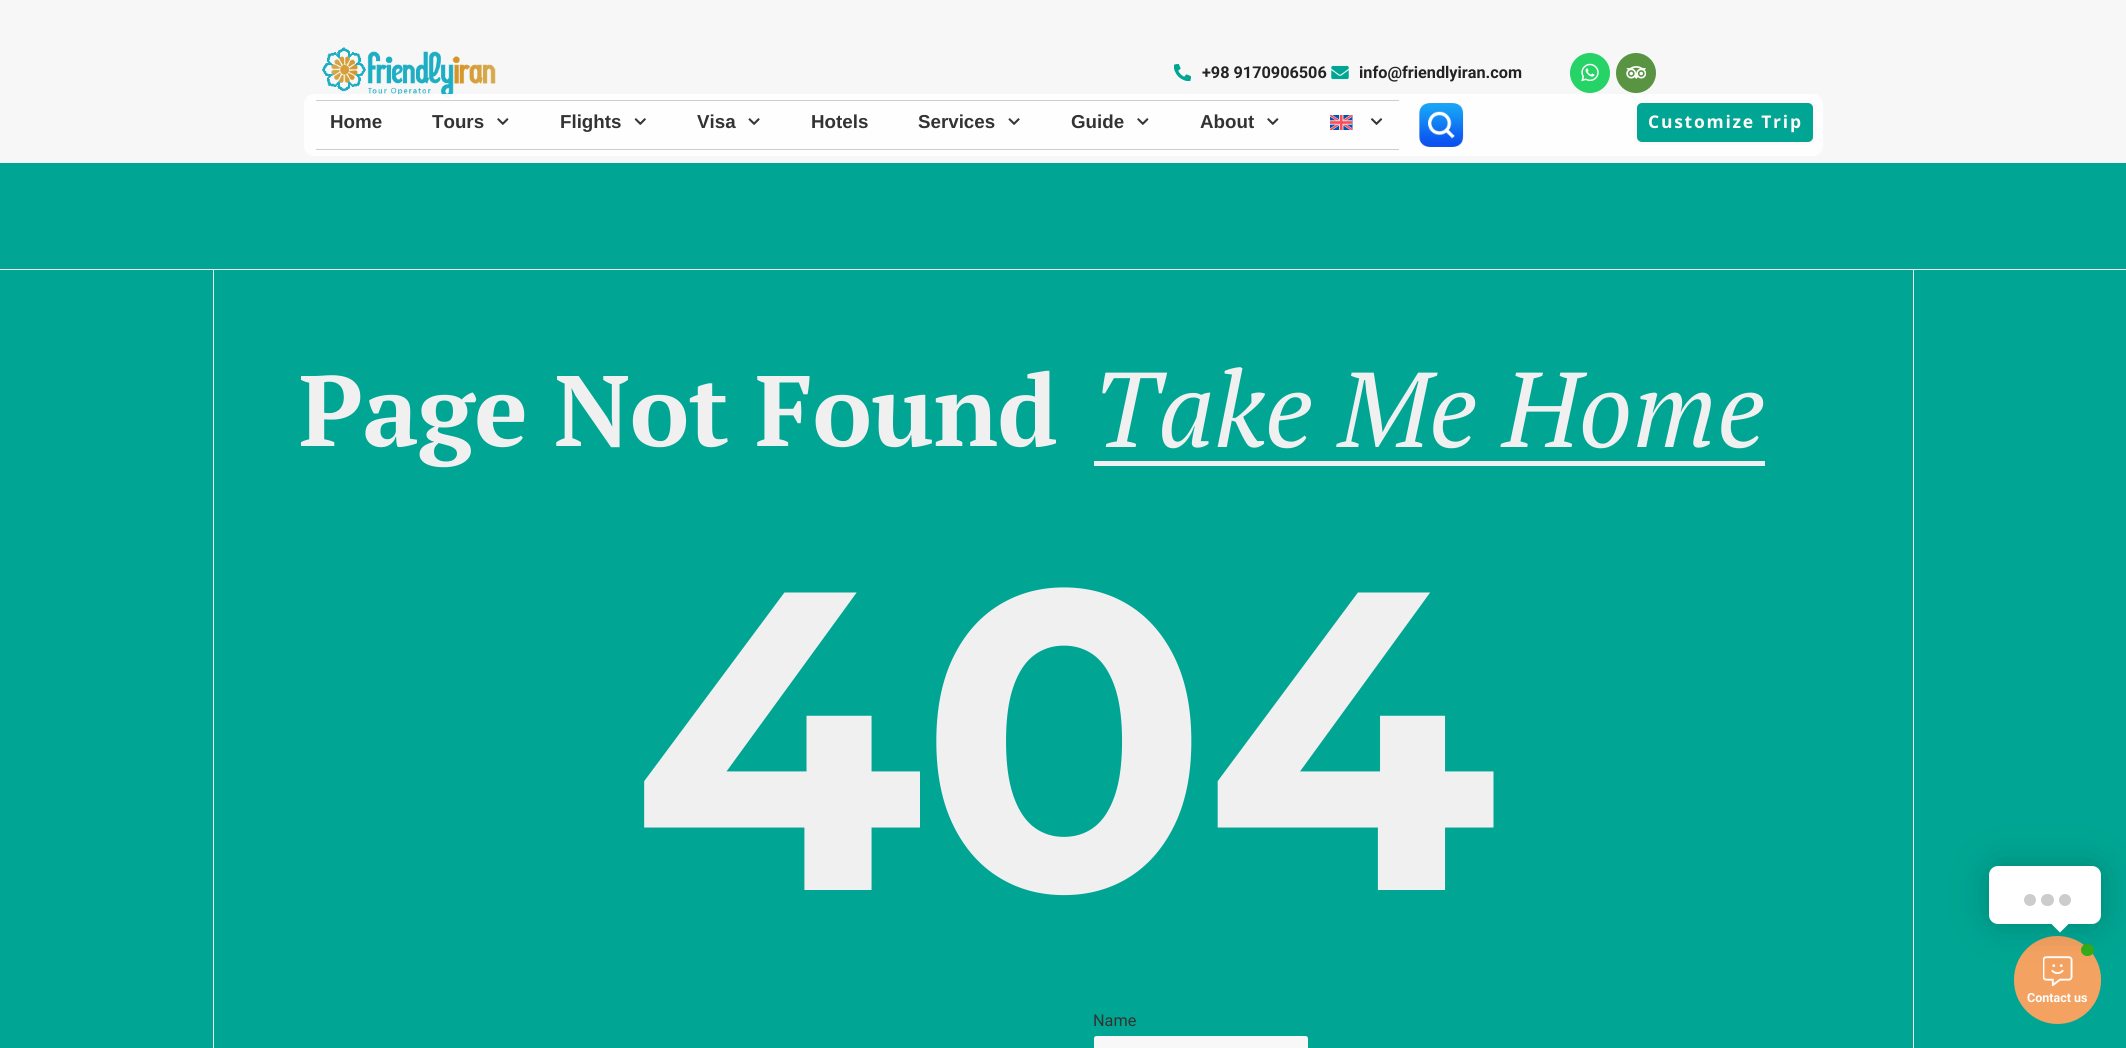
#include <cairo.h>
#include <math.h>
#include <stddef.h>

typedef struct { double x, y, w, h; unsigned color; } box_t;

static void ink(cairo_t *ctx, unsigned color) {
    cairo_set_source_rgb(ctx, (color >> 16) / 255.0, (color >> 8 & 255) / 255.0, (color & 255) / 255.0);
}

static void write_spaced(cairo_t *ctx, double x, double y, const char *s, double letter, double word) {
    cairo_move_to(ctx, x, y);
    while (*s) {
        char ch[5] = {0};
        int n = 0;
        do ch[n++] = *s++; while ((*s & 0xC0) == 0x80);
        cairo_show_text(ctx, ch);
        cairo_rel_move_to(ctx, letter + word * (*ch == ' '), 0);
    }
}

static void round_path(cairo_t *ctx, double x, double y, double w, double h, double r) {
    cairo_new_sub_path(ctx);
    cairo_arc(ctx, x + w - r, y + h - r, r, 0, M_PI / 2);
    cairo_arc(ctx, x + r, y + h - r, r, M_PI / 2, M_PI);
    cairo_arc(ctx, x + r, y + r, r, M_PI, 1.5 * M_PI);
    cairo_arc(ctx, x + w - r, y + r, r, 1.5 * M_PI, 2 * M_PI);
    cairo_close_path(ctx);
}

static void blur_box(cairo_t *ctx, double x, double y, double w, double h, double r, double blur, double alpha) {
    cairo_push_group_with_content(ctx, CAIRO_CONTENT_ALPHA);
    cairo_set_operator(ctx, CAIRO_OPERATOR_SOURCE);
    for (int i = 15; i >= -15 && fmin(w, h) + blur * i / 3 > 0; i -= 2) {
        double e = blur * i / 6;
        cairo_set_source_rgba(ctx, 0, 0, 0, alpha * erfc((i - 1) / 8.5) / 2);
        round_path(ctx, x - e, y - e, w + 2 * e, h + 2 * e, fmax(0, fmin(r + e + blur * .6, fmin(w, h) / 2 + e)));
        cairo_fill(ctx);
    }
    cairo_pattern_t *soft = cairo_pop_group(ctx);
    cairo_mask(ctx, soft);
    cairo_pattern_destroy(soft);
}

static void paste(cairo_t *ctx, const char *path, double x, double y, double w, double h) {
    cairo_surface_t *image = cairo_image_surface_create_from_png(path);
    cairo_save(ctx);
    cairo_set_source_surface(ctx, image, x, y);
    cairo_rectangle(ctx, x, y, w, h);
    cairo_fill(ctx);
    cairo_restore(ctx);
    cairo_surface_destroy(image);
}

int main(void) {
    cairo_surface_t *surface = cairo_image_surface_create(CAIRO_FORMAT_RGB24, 2126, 1048);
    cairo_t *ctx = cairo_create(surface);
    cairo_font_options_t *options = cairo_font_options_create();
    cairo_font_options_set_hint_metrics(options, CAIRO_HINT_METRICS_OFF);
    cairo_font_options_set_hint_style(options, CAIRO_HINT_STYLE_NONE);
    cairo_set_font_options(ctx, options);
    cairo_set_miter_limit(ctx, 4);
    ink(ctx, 0xF7F7F7);
    cairo_paint(ctx);
    paste(ctx, "media/1.png", 322, 47, 174, 51);
    paste(ctx, "media/2.png", 1174, 64, 17, 17);
    cairo_select_font_face(ctx, "Roboto", CAIRO_FONT_SLANT_NORMAL, CAIRO_FONT_WEIGHT_BOLD);
    cairo_set_font_size(ctx, 16.25);
    ink(ctx, 0x242323);
    cairo_move_to(ctx, 1202, 78);
    cairo_show_text(ctx, "+98 9170906506");
    paste(ctx, "media/3.png", 1331, 65, 18, 15);
    cairo_move_to(ctx, 1359, 78);
    cairo_show_text(ctx, "info@friendlyiran.com");
    ink(ctx, 0x25D366);
    cairo_new_path(ctx);
    cairo_arc(ctx, 1590, 73, 20, 0, 2 * M_PI);
    cairo_fill(ctx);
    paste(ctx, "media/4.png", 1581, 63, 18, 19);
    ink(ctx, 0x589442);
    cairo_arc(ctx, 1636, 73, 20, 0, 2 * M_PI);
    cairo_fill(ctx);
    paste(ctx, "media/5.png", 1626, 66, 20, 13);
    cairo_set_source_rgba(ctx, 1, 1, 1, 0.93);
    round_path(ctx, 304, 94, 1519, 62, 10);
    cairo_fill(ctx);
    ink(ctx, 0xCDCDCD);
    cairo_rectangle(ctx, 316, 100, 1083, 1);
    cairo_fill(ctx);
    cairo_rectangle(ctx, 316, 149, 1083, 1);
    cairo_fill(ctx);
    cairo_select_font_face(ctx, "Liberation Sans", CAIRO_FONT_SLANT_NORMAL, CAIRO_FONT_WEIGHT_BOLD);
    cairo_set_font_size(ctx, 18.75);
    ink(ctx, 0x333333);
    cairo_move_to(ctx, 330, 128);
    cairo_show_text(ctx, "Home");
    cairo_move_to(ctx, 432, 128);
    cairo_show_text(ctx, "Tours");
    paste(ctx, "media/6.png", 497, 118, 12, 7);
    cairo_move_to(ctx, 560, 128);
    cairo_show_text(ctx, "Flights");
    paste(ctx, "media/7.png", 634, 118, 12, 7);
    cairo_move_to(ctx, 697, 128);
    cairo_show_text(ctx, "Visa");
    paste(ctx, "media/8.png", 748, 118, 12, 7);
    cairo_move_to(ctx, 811, 128);
    cairo_show_text(ctx, "Hotels");
    cairo_move_to(ctx, 918, 128);
    cairo_show_text(ctx, "Services");
    paste(ctx, "media/8.png", 1008, 118, 12, 7);
    cairo_move_to(ctx, 1071, 128);
    cairo_show_text(ctx, "Guide");
    paste(ctx, "media/6.png", 1137, 118, 12, 7);
    cairo_move_to(ctx, 1200, 128);
    cairo_show_text(ctx, "About");
    paste(ctx, "media/6.png", 1267, 118, 12, 7);
    paste(ctx, "media/9.png", 1330, 115, 23, 15);
    paste(ctx, "media/10.png", 1371, 118, 12, 7);
    paste(ctx, "media/11.png", 1419, 103, 45, 44);
    ink(ctx, 0x00A693);
    round_path(ctx, 1635.5, 101.5, 179, 42, 6.5);
    cairo_fill_preserve(ctx);
    ink(ctx, 0xFFF8F8);
    cairo_set_line_width(ctx, 3);
    cairo_stroke(ctx);
    cairo_select_font_face(ctx, "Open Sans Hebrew", CAIRO_FONT_SLANT_NORMAL, CAIRO_FONT_WEIGHT_BOLD);
    cairo_set_font_size(ctx, 17.5);
    write_spaced(ctx, 1648, 128, "Customize Trip", 1.75, 0);
    {
        static const box_t items[] = {
            {0, 163, 2126, 885, 0x00A693},
            {0, 269, 2126, 1, 0xF0F0F0},
            {1913, 270, 1, 778, 0xF0F0F0},
            {213, 270, 1, 778, 0xF0F0F0},
        };
        for (size_t i = 0; i < sizeof items / sizeof *items; i++) {
            ink(ctx, items[i].color);
            cairo_rectangle(ctx, items[i].x, items[i].y, items[i].w, items[i].h);
            cairo_fill(ctx);
        }
    }
    cairo_select_font_face(ctx, "PT Serif", CAIRO_FONT_SLANT_NORMAL, CAIRO_FONT_WEIGHT_BOLD);
    cairo_set_font_size(ctx, 100);
    write_spaced(ctx, 299, 446, "Page Not Found", -0.3, 0);
    cairo_rectangle(ctx, 1094, 461, 671, 5);
    cairo_fill(ctx);
    cairo_select_font_face(ctx, "PT Serif", CAIRO_FONT_SLANT_ITALIC, CAIRO_FONT_WEIGHT_NORMAL);
    cairo_set_font_size(ctx, 106.25);
    write_spaced(ctx, 1093, 447, "Take Me Home", -0.3, 0);
    cairo_select_font_face(ctx, "Montserrat", CAIRO_FONT_SLANT_NORMAL, CAIRO_FONT_WEIGHT_BOLD);
    cairo_set_font_size(ctx, 425);
    write_spaced(ctx, 631, 890, "404", -4, 0);
    cairo_select_font_face(ctx, "Roboto", CAIRO_FONT_SLANT_NORMAL, CAIRO_FONT_WEIGHT_NORMAL);
    cairo_set_font_size(ctx, 16.25);
    ink(ctx, 0x333333);
    cairo_move_to(ctx, 1093, 1026);
    cairo_show_text(ctx, "Name");
    ink(ctx, 0xF8F8F8);
    round_path(ctx, 1094, 1036, 214, 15, 2.5);
    cairo_fill(ctx);
    ink(ctx, 0xF4A261);
    round_path(ctx, 2014, 936, 87, 88, 43.5);
    cairo_fill(ctx);
    ink(ctx, 0x35AC19);
    round_path(ctx, 2081, 944, 13, 12, 6);
    cairo_fill(ctx);
    paste(ctx, "media/12.png", 2043, 956, 30, 30);
    ink(ctx, 0x000000);
    blur_box(ctx, 1989, 866, 112, 58, 9, 19, 0.2);
    ink(ctx, 0xFFFFFF);
    round_path(ctx, 1989, 866, 112, 58, 9);
    cairo_fill(ctx);
    ink(ctx, 0xCCCCCC);
    cairo_arc(ctx, 2030, 900, 6, 0, 2 * M_PI);
    cairo_fill(ctx);
    round_path(ctx, 2041, 894, 13, 12, 6);
    cairo_fill(ctx);
    cairo_arc(ctx, 2065, 900, 6, 0, 2 * M_PI);
    cairo_fill(ctx);
    ink(ctx, 0xFFFFFF);
    cairo_new_path(ctx);
    cairo_move_to(ctx, 2050, 922.5);
    cairo_line_to(ctx, 2070, 922.5);
    cairo_line_to(ctx, 2060, 932.5);
    cairo_close_path(ctx);
    cairo_fill(ctx);
    cairo_select_font_face(ctx, "Roboto", CAIRO_FONT_SLANT_NORMAL, CAIRO_FONT_WEIGHT_BOLD);
    cairo_set_font_size(ctx, 12.5);
    cairo_move_to(ctx, 2027, 1002);
    cairo_show_text(ctx, "Contact us");
    cairo_surface_write_to_png(surface, "image.png");
    cairo_font_options_destroy(options);
    cairo_destroy(ctx);
    cairo_surface_destroy(surface);
    return 0;
}
